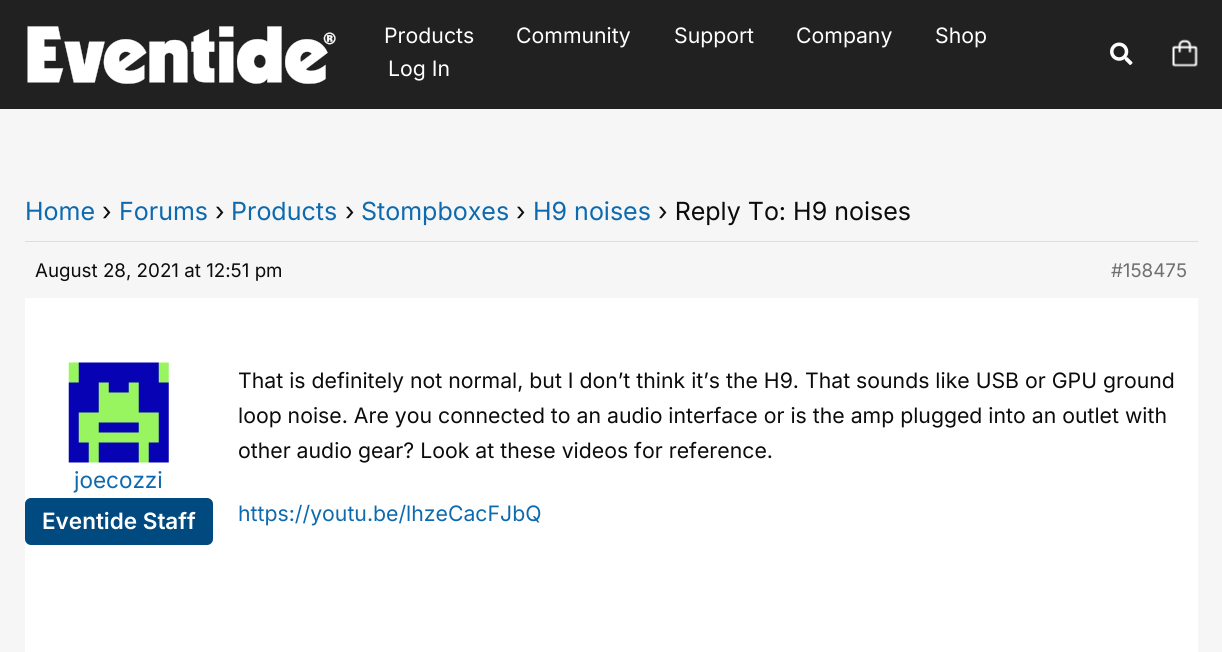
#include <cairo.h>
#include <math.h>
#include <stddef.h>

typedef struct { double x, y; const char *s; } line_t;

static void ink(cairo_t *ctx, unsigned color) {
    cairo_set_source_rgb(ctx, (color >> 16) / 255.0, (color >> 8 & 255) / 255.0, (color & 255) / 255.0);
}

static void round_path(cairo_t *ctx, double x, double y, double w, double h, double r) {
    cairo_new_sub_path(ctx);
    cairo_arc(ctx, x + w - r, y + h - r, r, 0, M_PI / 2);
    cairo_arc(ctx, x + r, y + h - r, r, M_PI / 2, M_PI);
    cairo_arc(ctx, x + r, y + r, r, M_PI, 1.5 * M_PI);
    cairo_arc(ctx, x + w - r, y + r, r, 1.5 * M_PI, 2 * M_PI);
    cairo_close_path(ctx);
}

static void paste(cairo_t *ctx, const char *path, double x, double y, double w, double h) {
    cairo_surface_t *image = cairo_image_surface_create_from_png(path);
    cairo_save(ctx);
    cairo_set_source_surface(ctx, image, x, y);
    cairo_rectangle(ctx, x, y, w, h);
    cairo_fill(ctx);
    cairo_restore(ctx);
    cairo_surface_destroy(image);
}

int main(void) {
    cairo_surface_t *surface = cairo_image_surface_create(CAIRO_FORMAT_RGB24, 1222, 652);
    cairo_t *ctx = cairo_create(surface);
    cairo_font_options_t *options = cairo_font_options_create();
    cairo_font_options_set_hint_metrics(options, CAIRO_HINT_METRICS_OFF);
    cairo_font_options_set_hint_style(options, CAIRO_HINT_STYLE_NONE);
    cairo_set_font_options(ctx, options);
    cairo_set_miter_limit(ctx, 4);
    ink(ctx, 0xF6F6F6);
    cairo_paint(ctx);
    ink(ctx, 0x222121);
    cairo_rectangle(ctx, 0, 0, 1222, 109);
    cairo_fill(ctx);
    paste(ctx, "media/1.png", 27, 26, 309, 58);
    cairo_select_font_face(ctx, "Inter", CAIRO_FONT_SLANT_NORMAL, CAIRO_FONT_WEIGHT_NORMAL);
    cairo_set_font_size(ctx, 21.25);
    ink(ctx, 0xFFFFFF);
    {
        static const line_t items[] = {
            {384, 43, "Products"},
            {516, 43, "Community"},
            {674, 43, "Support"},
            {796, 43, "Company"},
            {935, 43, "Shop"},
            {388, 76, "Log In"},
        };
        for (size_t i = 0; i < sizeof items / sizeof *items; i++) {
            cairo_move_to(ctx, items[i].x, items[i].y);
            cairo_show_text(ctx, items[i].s);
        }
    }
    paste(ctx, "media/2.png", 1110, 42, 23, 23);
    paste(ctx, "media/3.png", 1172, 39, 26, 28);
    cairo_set_font_size(ctx, 25);
    ink(ctx, 0x0E6AAF);
    cairo_move_to(ctx, 25, 220);
    cairo_show_text(ctx, "Home");
    ink(ctx, 0x0C0C0C);
    cairo_move_to(ctx, 102, 220);
    cairo_show_text(ctx, "›");
    ink(ctx, 0x0E6AAF);
    cairo_move_to(ctx, 119, 220);
    cairo_show_text(ctx, "Forums");
    ink(ctx, 0x0C0C0C);
    cairo_move_to(ctx, 215, 220);
    cairo_show_text(ctx, "›");
    ink(ctx, 0x0E6AAF);
    cairo_move_to(ctx, 231, 220);
    cairo_show_text(ctx, "Products");
    ink(ctx, 0x0C0C0C);
    cairo_move_to(ctx, 345, 220);
    cairo_show_text(ctx, "›");
    ink(ctx, 0x0E6AAF);
    cairo_move_to(ctx, 361, 220);
    cairo_show_text(ctx, "Stompboxes");
    ink(ctx, 0x0C0C0C);
    cairo_move_to(ctx, 516, 220);
    cairo_show_text(ctx, "›");
    ink(ctx, 0x0E6AAF);
    cairo_move_to(ctx, 533, 220);
    cairo_show_text(ctx, "H9 noises");
    ink(ctx, 0x0C0C0C);
    cairo_move_to(ctx, 658, 220);
    cairo_show_text(ctx, "› Reply To: H9 noises");
    ink(ctx, 0xDDDDDD);
    cairo_rectangle(ctx, 25, 241, 1173, 1);
    cairo_fill(ctx);
    cairo_set_font_size(ctx, 18.75);
    ink(ctx, 0x0C0C0C);
    cairo_move_to(ctx, 35, 277);
    cairo_show_text(ctx, "August 28, 2021 at 12:51 pm");
    ink(ctx, 0x707070);
    cairo_move_to(ctx, 1111, 277);
    cairo_show_text(ctx, "#158475");
    ink(ctx, 0xFFFFFF);
    cairo_rectangle(ctx, 25, 298, 1173, 354);
    cairo_fill(ctx);
    paste(ctx, "media/4.png", 68, 362, 101, 101);
    cairo_set_font_size(ctx, 22.5);
    ink(ctx, 0x0E6AAF);
    cairo_move_to(ctx, 74, 488);
    cairo_show_text(ctx, "joecozzi");
    ink(ctx, 0x004A80);
    round_path(ctx, 25, 498, 188, 47, 6);
    cairo_fill(ctx);
    cairo_select_font_face(ctx, "Inter SemiBold", CAIRO_FONT_SLANT_NORMAL, CAIRO_FONT_WEIGHT_NORMAL);
    ink(ctx, 0xFFFFFF);
    cairo_move_to(ctx, 42, 529);
    cairo_show_text(ctx, "Eventide Staff");
    cairo_select_font_face(ctx, "Inter", CAIRO_FONT_SLANT_NORMAL, CAIRO_FONT_WEIGHT_NORMAL);
    cairo_set_font_size(ctx, 21.25);
    ink(ctx, 0x0C0C0C);
    {
        static const line_t items[] = {
            {238, 388, "That is definitely not normal, but I don’t think it’s the H9. That sounds like USB or GPU ground"},
            {238, 423, "loop noise. Are you connected to an audio interface or is the amp plugged into an outlet with"},
            {238, 458, "other audio gear? Look at these videos for reference."},
        };
        for (size_t i = 0; i < sizeof items / sizeof *items; i++) {
            cairo_move_to(ctx, items[i].x, items[i].y);
            cairo_show_text(ctx, items[i].s);
        }
    }
    ink(ctx, 0x0E6AAF);
    cairo_move_to(ctx, 238, 521);
    cairo_show_text(ctx, "https://youtu.be/lhzeCacFJbQ");
    cairo_surface_write_to_png(surface, "image.png");
    cairo_font_options_destroy(options);
    cairo_destroy(ctx);
    cairo_surface_destroy(surface);
    return 0;
}
